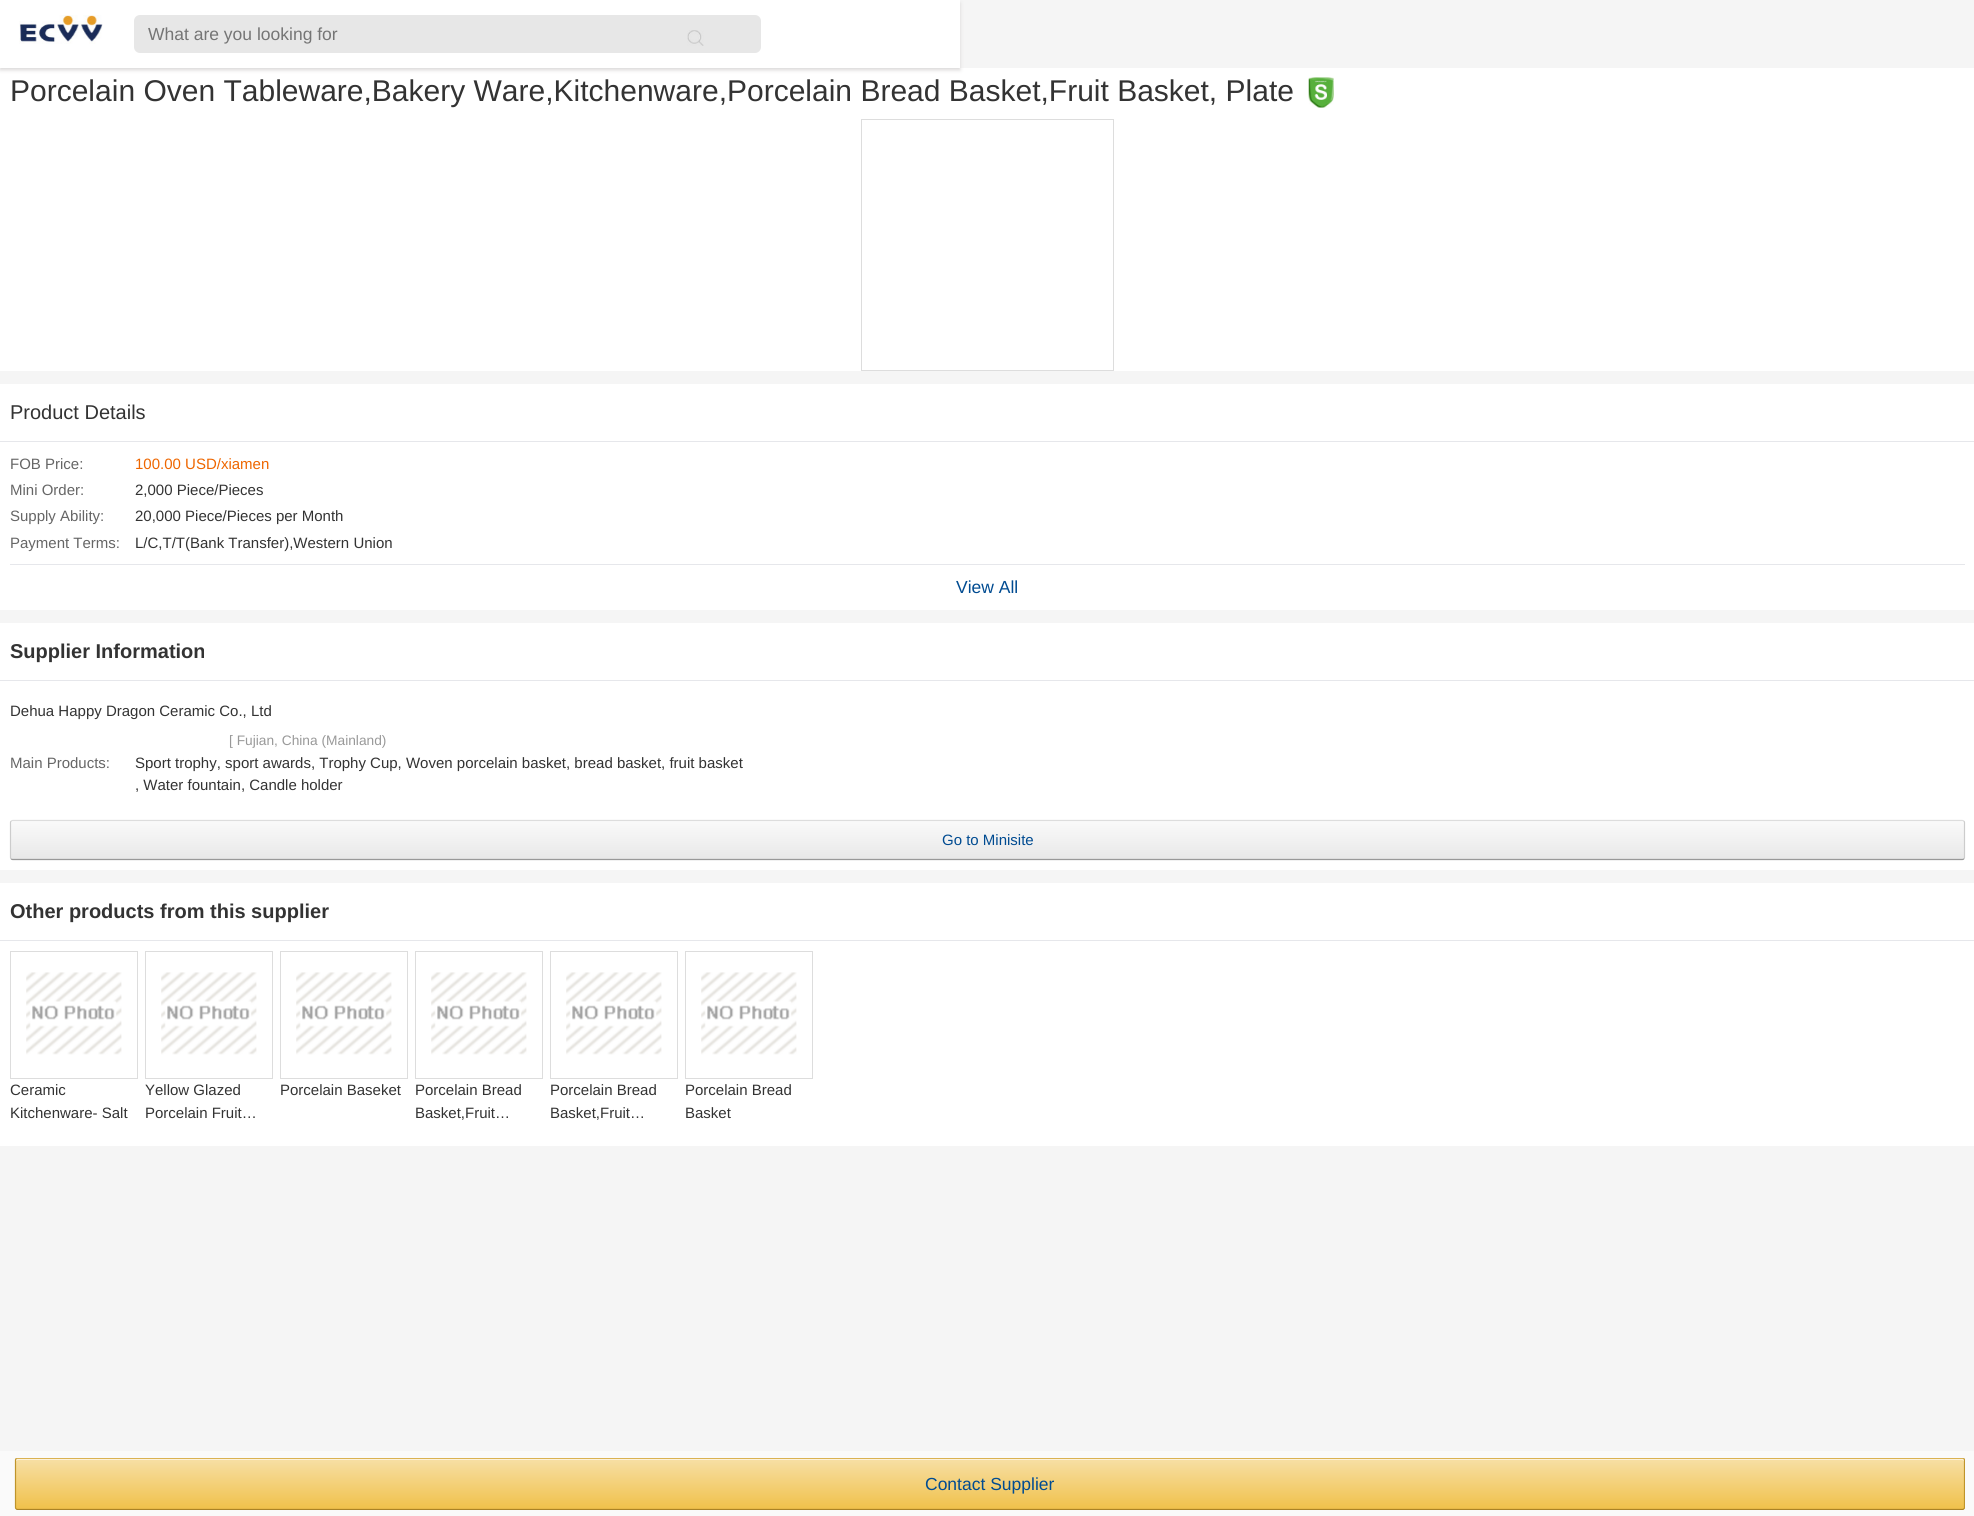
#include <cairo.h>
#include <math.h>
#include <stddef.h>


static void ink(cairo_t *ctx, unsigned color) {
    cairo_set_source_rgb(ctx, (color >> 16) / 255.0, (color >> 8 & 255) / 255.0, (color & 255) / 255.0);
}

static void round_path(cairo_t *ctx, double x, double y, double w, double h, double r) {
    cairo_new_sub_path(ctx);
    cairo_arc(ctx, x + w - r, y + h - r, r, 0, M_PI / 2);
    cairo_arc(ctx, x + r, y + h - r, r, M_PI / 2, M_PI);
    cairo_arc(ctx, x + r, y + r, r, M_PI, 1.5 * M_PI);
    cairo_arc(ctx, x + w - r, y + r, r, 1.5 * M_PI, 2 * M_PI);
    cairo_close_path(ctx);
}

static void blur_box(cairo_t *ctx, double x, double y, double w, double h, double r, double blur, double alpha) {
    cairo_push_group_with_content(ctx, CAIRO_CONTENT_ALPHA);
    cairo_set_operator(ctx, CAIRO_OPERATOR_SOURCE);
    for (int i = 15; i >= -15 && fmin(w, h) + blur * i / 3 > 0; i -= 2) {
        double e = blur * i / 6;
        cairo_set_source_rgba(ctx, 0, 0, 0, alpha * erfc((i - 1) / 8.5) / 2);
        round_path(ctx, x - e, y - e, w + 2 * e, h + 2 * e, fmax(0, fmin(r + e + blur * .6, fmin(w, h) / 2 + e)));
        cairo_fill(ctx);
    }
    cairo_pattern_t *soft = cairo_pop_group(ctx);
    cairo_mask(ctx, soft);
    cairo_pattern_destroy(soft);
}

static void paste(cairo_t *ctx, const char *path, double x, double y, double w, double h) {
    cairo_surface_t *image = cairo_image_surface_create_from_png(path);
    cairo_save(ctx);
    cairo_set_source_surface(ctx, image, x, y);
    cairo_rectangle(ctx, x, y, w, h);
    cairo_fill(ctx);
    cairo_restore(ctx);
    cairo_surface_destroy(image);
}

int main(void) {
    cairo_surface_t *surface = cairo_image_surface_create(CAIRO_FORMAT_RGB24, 1974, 1516);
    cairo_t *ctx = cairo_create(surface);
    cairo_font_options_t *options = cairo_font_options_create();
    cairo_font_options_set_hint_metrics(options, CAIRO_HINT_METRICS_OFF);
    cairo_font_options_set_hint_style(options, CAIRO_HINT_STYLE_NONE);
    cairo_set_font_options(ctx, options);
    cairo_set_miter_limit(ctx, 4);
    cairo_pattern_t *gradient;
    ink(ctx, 0xF5F5F5);
    cairo_paint(ctx);
    ink(ctx, 0xFFFFFF);
    cairo_rectangle(ctx, 0, 68, 1974, 303);
    cairo_fill(ctx);
    ink(ctx, 0xD9D7D7);
    blur_box(ctx, 0, 3, 960, 67, 0, 2, 1);
    ink(ctx, 0xFFFFFF);
    cairo_rectangle(ctx, 0, 0, 960, 68);
    cairo_fill(ctx);
    paste(ctx, "media/1.png", 19, 15, 84, 29);
    ink(ctx, 0xE7E7E7);
    round_path(ctx, 134, 15, 627, 38, 6);
    cairo_fill(ctx);
    cairo_select_font_face(ctx, "Liberation Sans", CAIRO_FONT_SLANT_NORMAL, CAIRO_FONT_WEIGHT_NORMAL);
    cairo_set_font_size(ctx, 17.5);
    ink(ctx, 0x757575);
    cairo_move_to(ctx, 148, 40);
    cairo_show_text(ctx, "What are you looking for");
    paste(ctx, "media/2.png", 687, 30, 17, 16);
    cairo_set_font_size(ctx, 30);
    ink(ctx, 0x333333);
    cairo_move_to(ctx, 10, 101);
    cairo_show_text(ctx, "Porcelain Oven Tableware,Bakery Ware,Kitchenware,Porcelain Bread Basket,Fruit Basket, Plate");
    paste(ctx, "media/3.png", 1308, 77, 26, 31);
    cairo_rectangle(ctx, 861.5, 119.5, 252, 251);
    ink(ctx, 0xDDDDDD);
    cairo_set_line_width(ctx, 1);
    cairo_stroke(ctx);
    ink(ctx, 0xFFFFFF);
    cairo_rectangle(ctx, 0, 384, 1974, 226);
    cairo_fill(ctx);
    ink(ctx, 0xE6E7EB);
    cairo_rectangle(ctx, 0, 441, 1974, 1);
    cairo_fill(ctx);
    cairo_set_font_size(ctx, 20);
    ink(ctx, 0x333333);
    cairo_move_to(ctx, 10, 419);
    cairo_show_text(ctx, "Product Details");
    cairo_set_font_size(ctx, 15);
    ink(ctx, 0x666666);
    cairo_move_to(ctx, 10, 469);
    cairo_show_text(ctx, "FOB Price:");
    ink(ctx, 0xEE6600);
    cairo_move_to(ctx, 135, 469);
    cairo_show_text(ctx, "100.00 USD/xiamen");
    ink(ctx, 0x666666);
    cairo_move_to(ctx, 10, 495);
    cairo_show_text(ctx, "Mini Order:");
    ink(ctx, 0x333333);
    cairo_move_to(ctx, 135, 495);
    cairo_show_text(ctx, "2,000 Piece/Pieces");
    ink(ctx, 0x666666);
    cairo_move_to(ctx, 10, 521);
    cairo_show_text(ctx, "Supply Ability:");
    ink(ctx, 0x333333);
    cairo_move_to(ctx, 135, 521);
    cairo_show_text(ctx, "20,000 Piece/Pieces per Month");
    ink(ctx, 0x666666);
    cairo_move_to(ctx, 10, 548);
    cairo_show_text(ctx, "Payment Terms:");
    ink(ctx, 0x333333);
    cairo_move_to(ctx, 135, 548);
    cairo_show_text(ctx, "L/C,T/T(Bank Transfer),Western Union");
    ink(ctx, 0xE6E7EB);
    cairo_rectangle(ctx, 10, 564, 1955, 1);
    cairo_fill(ctx);
    cairo_set_font_size(ctx, 17.5);
    ink(ctx, 0x004B91);
    cairo_move_to(ctx, 956, 593);
    cairo_show_text(ctx, "View All");
    ink(ctx, 0xFFFFFF);
    cairo_rectangle(ctx, 0, 623, 1974, 57);
    cairo_fill(ctx);
    ink(ctx, 0xE6E7EB);
    cairo_rectangle(ctx, 0, 680, 1974, 1);
    cairo_fill(ctx);
    cairo_select_font_face(ctx, "Liberation Sans", CAIRO_FONT_SLANT_NORMAL, CAIRO_FONT_WEIGHT_BOLD);
    cairo_set_font_size(ctx, 20);
    ink(ctx, 0x333333);
    cairo_move_to(ctx, 10, 658);
    cairo_show_text(ctx, "Supplier Information");
    ink(ctx, 0xFFFFFF);
    cairo_rectangle(ctx, 0, 681, 1974, 189);
    cairo_fill(ctx);
    cairo_select_font_face(ctx, "Liberation Sans", CAIRO_FONT_SLANT_NORMAL, CAIRO_FONT_WEIGHT_NORMAL);
    cairo_set_font_size(ctx, 15);
    ink(ctx, 0x333333);
    cairo_move_to(ctx, 10, 716);
    cairo_show_text(ctx, "Dehua Happy Dragon Ceramic Co., Ltd");
    cairo_set_font_size(ctx, 13.75);
    ink(ctx, 0x999999);
    cairo_move_to(ctx, 229, 745);
    cairo_show_text(ctx, "[ Fujian, China (Mainland)");
    cairo_set_font_size(ctx, 15);
    ink(ctx, 0x666666);
    cairo_move_to(ctx, 10, 768);
    cairo_show_text(ctx, "Main Products:");
    ink(ctx, 0x333333);
    cairo_move_to(ctx, 135, 768);
    cairo_show_text(ctx, "Sport trophy, sport awards, Trophy Cup, Woven porcelain basket, bread basket, fruit basket");
    cairo_move_to(ctx, 135, 790);
    cairo_show_text(ctx, ", Water fountain, Candle holder");
    cairo_save(ctx);
    round_path(ctx, 10, 820, 1955, 40, 2.5);
    cairo_clip(ctx);
    gradient = cairo_pattern_create_linear(988, 821, 988, 859);
    cairo_pattern_add_color_stop_rgba(gradient, 0, 0.98, 0.98, 0.98, 1);
    cairo_pattern_add_color_stop_rgba(gradient, 1, 0.91, 0.91, 0.91, 1);
    cairo_set_source(ctx, gradient);
    cairo_pattern_destroy(gradient);
    cairo_rectangle(ctx, 10, 821, 1955, 38);
    cairo_fill(ctx);
    cairo_restore(ctx);
    ink(ctx, 0xFDFDFD);
    cairo_new_path(ctx);
    cairo_move_to(ctx, 12, 822);
    cairo_line_to(ctx, 1962, 822);
    cairo_curve_to(ctx, 1963, 822, 1964, 823, 1964, 824);
    cairo_line_to(ctx, 1964, 822);
    cairo_line_to(ctx, 1963, 821);
    cairo_line_to(ctx, 12, 821);
    cairo_line_to(ctx, 11, 822);
    cairo_line_to(ctx, 11, 824);
    cairo_close_path(ctx);
    cairo_fill(ctx);
    cairo_new_path(ctx);
    cairo_move_to(ctx, 11, 821);
    cairo_line_to(ctx, 12.5, 820.5);
    cairo_line_to(ctx, 1962.5, 820.5);
    cairo_line_to(ctx, 1964, 821);
    ink(ctx, 0xDDDDDD);
    cairo_set_line_width(ctx, 1.2);
    cairo_stroke(ctx);
    cairo_new_path(ctx);
    cairo_move_to(ctx, 1964, 821);
    cairo_line_to(ctx, 1964.5, 822.5);
    cairo_line_to(ctx, 1964.5, 857.5);
    cairo_line_to(ctx, 1964, 859);
    ink(ctx, 0xCCCCCC);
    cairo_stroke(ctx);
    cairo_new_path(ctx);
    cairo_move_to(ctx, 1964, 859);
    cairo_line_to(ctx, 1962.5, 859.5);
    cairo_line_to(ctx, 12.5, 859.5);
    cairo_line_to(ctx, 11, 859);
    ink(ctx, 0x999999);
    cairo_stroke(ctx);
    cairo_new_path(ctx);
    cairo_move_to(ctx, 11, 859);
    cairo_line_to(ctx, 10.5, 857.5);
    cairo_line_to(ctx, 10.5, 822.5);
    cairo_line_to(ctx, 11, 821);
    ink(ctx, 0xCCCCCC);
    cairo_stroke(ctx);
    ink(ctx, 0x004B91);
    cairo_move_to(ctx, 942, 845);
    cairo_show_text(ctx, "Go to Minisite");
    ink(ctx, 0xFFFFFF);
    cairo_rectangle(ctx, 0, 883, 1974, 57);
    cairo_fill(ctx);
    ink(ctx, 0xE6E7EB);
    cairo_rectangle(ctx, 0, 940, 1974, 1);
    cairo_fill(ctx);
    cairo_select_font_face(ctx, "Liberation Sans", CAIRO_FONT_SLANT_NORMAL, CAIRO_FONT_WEIGHT_BOLD);
    cairo_set_font_size(ctx, 20);
    ink(ctx, 0x333333);
    cairo_move_to(ctx, 10, 918);
    cairo_show_text(ctx, "Other products from this supplier");
    ink(ctx, 0xFFFFFF);
    cairo_rectangle(ctx, 0, 941, 1974, 205);
    cairo_fill(ctx);
    cairo_rectangle(ctx, 10.5, 951.5, 127, 127);
    ink(ctx, 0xDDDDDD);
    cairo_set_line_width(ctx, 1);
    cairo_stroke(ctx);
    paste(ctx, "media/4.png", 26, 972, 96, 83);
    cairo_select_font_face(ctx, "Liberation Sans", CAIRO_FONT_SLANT_NORMAL, CAIRO_FONT_WEIGHT_NORMAL);
    cairo_set_font_size(ctx, 15);
    ink(ctx, 0x333333);
    cairo_move_to(ctx, 10, 1095);
    cairo_show_text(ctx, "Ceramic");
    cairo_move_to(ctx, 10, 1118);
    cairo_show_text(ctx, "Kitchenware- Salt");
    cairo_rectangle(ctx, 145.5, 951.5, 127, 127);
    ink(ctx, 0xDDDDDD);
    cairo_stroke(ctx);
    paste(ctx, "media/4.png", 161, 972, 96, 83);
    ink(ctx, 0x333333);
    cairo_move_to(ctx, 145, 1095);
    cairo_show_text(ctx, "Yellow Glazed");
    cairo_move_to(ctx, 145, 1118);
    cairo_show_text(ctx, "Porcelain Fruit…");
    cairo_rectangle(ctx, 280.5, 951.5, 127, 127);
    ink(ctx, 0xDDDDDD);
    cairo_stroke(ctx);
    paste(ctx, "media/4.png", 296, 972, 96, 83);
    ink(ctx, 0x333333);
    cairo_move_to(ctx, 280, 1095);
    cairo_show_text(ctx, "Porcelain Baseket");
    cairo_rectangle(ctx, 415.5, 951.5, 127, 127);
    ink(ctx, 0xDDDDDD);
    cairo_stroke(ctx);
    paste(ctx, "media/5.png", 431, 972, 96, 83);
    ink(ctx, 0x333333);
    cairo_move_to(ctx, 415, 1095);
    cairo_show_text(ctx, "Porcelain Bread");
    cairo_move_to(ctx, 415, 1118);
    cairo_show_text(ctx, "Basket,Fruit…");
    cairo_rectangle(ctx, 550.5, 951.5, 127, 127);
    ink(ctx, 0xDDDDDD);
    cairo_stroke(ctx);
    paste(ctx, "media/6.png", 566, 972, 96, 83);
    ink(ctx, 0x333333);
    cairo_move_to(ctx, 550, 1095);
    cairo_show_text(ctx, "Porcelain Bread");
    cairo_move_to(ctx, 550, 1118);
    cairo_show_text(ctx, "Basket,Fruit…");
    cairo_rectangle(ctx, 685.5, 951.5, 127, 127);
    ink(ctx, 0xDDDDDD);
    cairo_stroke(ctx);
    paste(ctx, "media/4.png", 701, 972, 96, 83);
    ink(ctx, 0x333333);
    cairo_move_to(ctx, 685, 1095);
    cairo_show_text(ctx, "Porcelain Bread");
    cairo_move_to(ctx, 685, 1118);
    cairo_show_text(ctx, "Basket");
    ink(ctx, 0xFAFAFA);
    cairo_rectangle(ctx, 0, 1451, 1974, 65);
    cairo_fill(ctx);
    cairo_save(ctx);
    round_path(ctx, 15, 1458, 1950, 52, 2.5);
    cairo_clip(ctx);
    gradient = cairo_pattern_create_linear(990, 1409, 990, 1459);
    cairo_pattern_add_color_stop_rgba(gradient, 0, 0.969, 0.875, 0.647, 1);
    cairo_pattern_add_color_stop_rgba(gradient, 1, 0.941, 0.757, 0.294, 1);
    cairo_set_source(ctx, gradient);
    cairo_pattern_destroy(gradient);
    cairo_rectangle(ctx, 15, 1458, 1950, 1);
    cairo_fill(ctx);
    gradient = cairo_pattern_create_linear(990, 1459, 990, 1509);
    cairo_pattern_add_color_stop_rgba(gradient, 0, 0.969, 0.875, 0.647, 1);
    cairo_pattern_add_color_stop_rgba(gradient, 1, 0.941, 0.757, 0.294, 1);
    cairo_set_source(ctx, gradient);
    cairo_pattern_destroy(gradient);
    cairo_rectangle(ctx, 15, 1459, 1950, 50);
    cairo_fill(ctx);
    cairo_restore(ctx);
    ink(ctx, 0xFCF2DB);
    cairo_new_path(ctx);
    cairo_move_to(ctx, 18, 1460);
    cairo_line_to(ctx, 1962, 1460);
    cairo_line_to(ctx, 1964, 1461);
    cairo_curve_to(ctx, 1964, 1460, 1964, 1459, 1963, 1459);
    cairo_line_to(ctx, 17, 1459);
    cairo_line_to(ctx, 16, 1460);
    cairo_line_to(ctx, 16, 1461);
    cairo_close_path(ctx);
    cairo_fill(ctx);
    cairo_save(ctx);
    cairo_rectangle(ctx, 10, 1458, 1955, 52);
    cairo_clip(ctx);
    cairo_new_path(ctx);
    cairo_move_to(ctx, 16, 1458.5);
    cairo_line_to(ctx, 17.5, 1458);
    cairo_line_to(ctx, 1962.5, 1458);
    cairo_line_to(ctx, 1964, 1458.5);
    ink(ctx, 0xCBA957);
    cairo_set_line_width(ctx, 1.2);
    cairo_stroke(ctx);
    cairo_new_path(ctx);
    cairo_move_to(ctx, 1964, 1458.5);
    cairo_line_to(ctx, 1964.5, 1460);
    cairo_line_to(ctx, 1964.5, 1507.5);
    cairo_line_to(ctx, 1964, 1509);
    ink(ctx, 0xBF942A);
    cairo_stroke(ctx);
    cairo_new_path(ctx);
    cairo_move_to(ctx, 1964, 1509);
    cairo_line_to(ctx, 1962.5, 1509.5);
    cairo_line_to(ctx, 17.5, 1509.5);
    cairo_line_to(ctx, 16, 1509);
    ink(ctx, 0xAA8326);
    cairo_stroke(ctx);
    cairo_restore(ctx);
    cairo_new_path(ctx);
    cairo_move_to(ctx, 16, 1509);
    cairo_line_to(ctx, 15.5, 1507.5);
    cairo_line_to(ctx, 15.5, 1460);
    cairo_line_to(ctx, 16, 1458.5);
    ink(ctx, 0xBF942A);
    cairo_set_line_width(ctx, 1.2);
    cairo_stroke(ctx);
    cairo_set_font_size(ctx, 17.5);
    ink(ctx, 0x004B91);
    cairo_move_to(ctx, 925, 1490);
    cairo_show_text(ctx, "Contact Supplier");
    cairo_surface_write_to_png(surface, "image.png");
    cairo_font_options_destroy(options);
    cairo_destroy(ctx);
    cairo_surface_destroy(surface);
    return 0;
}
